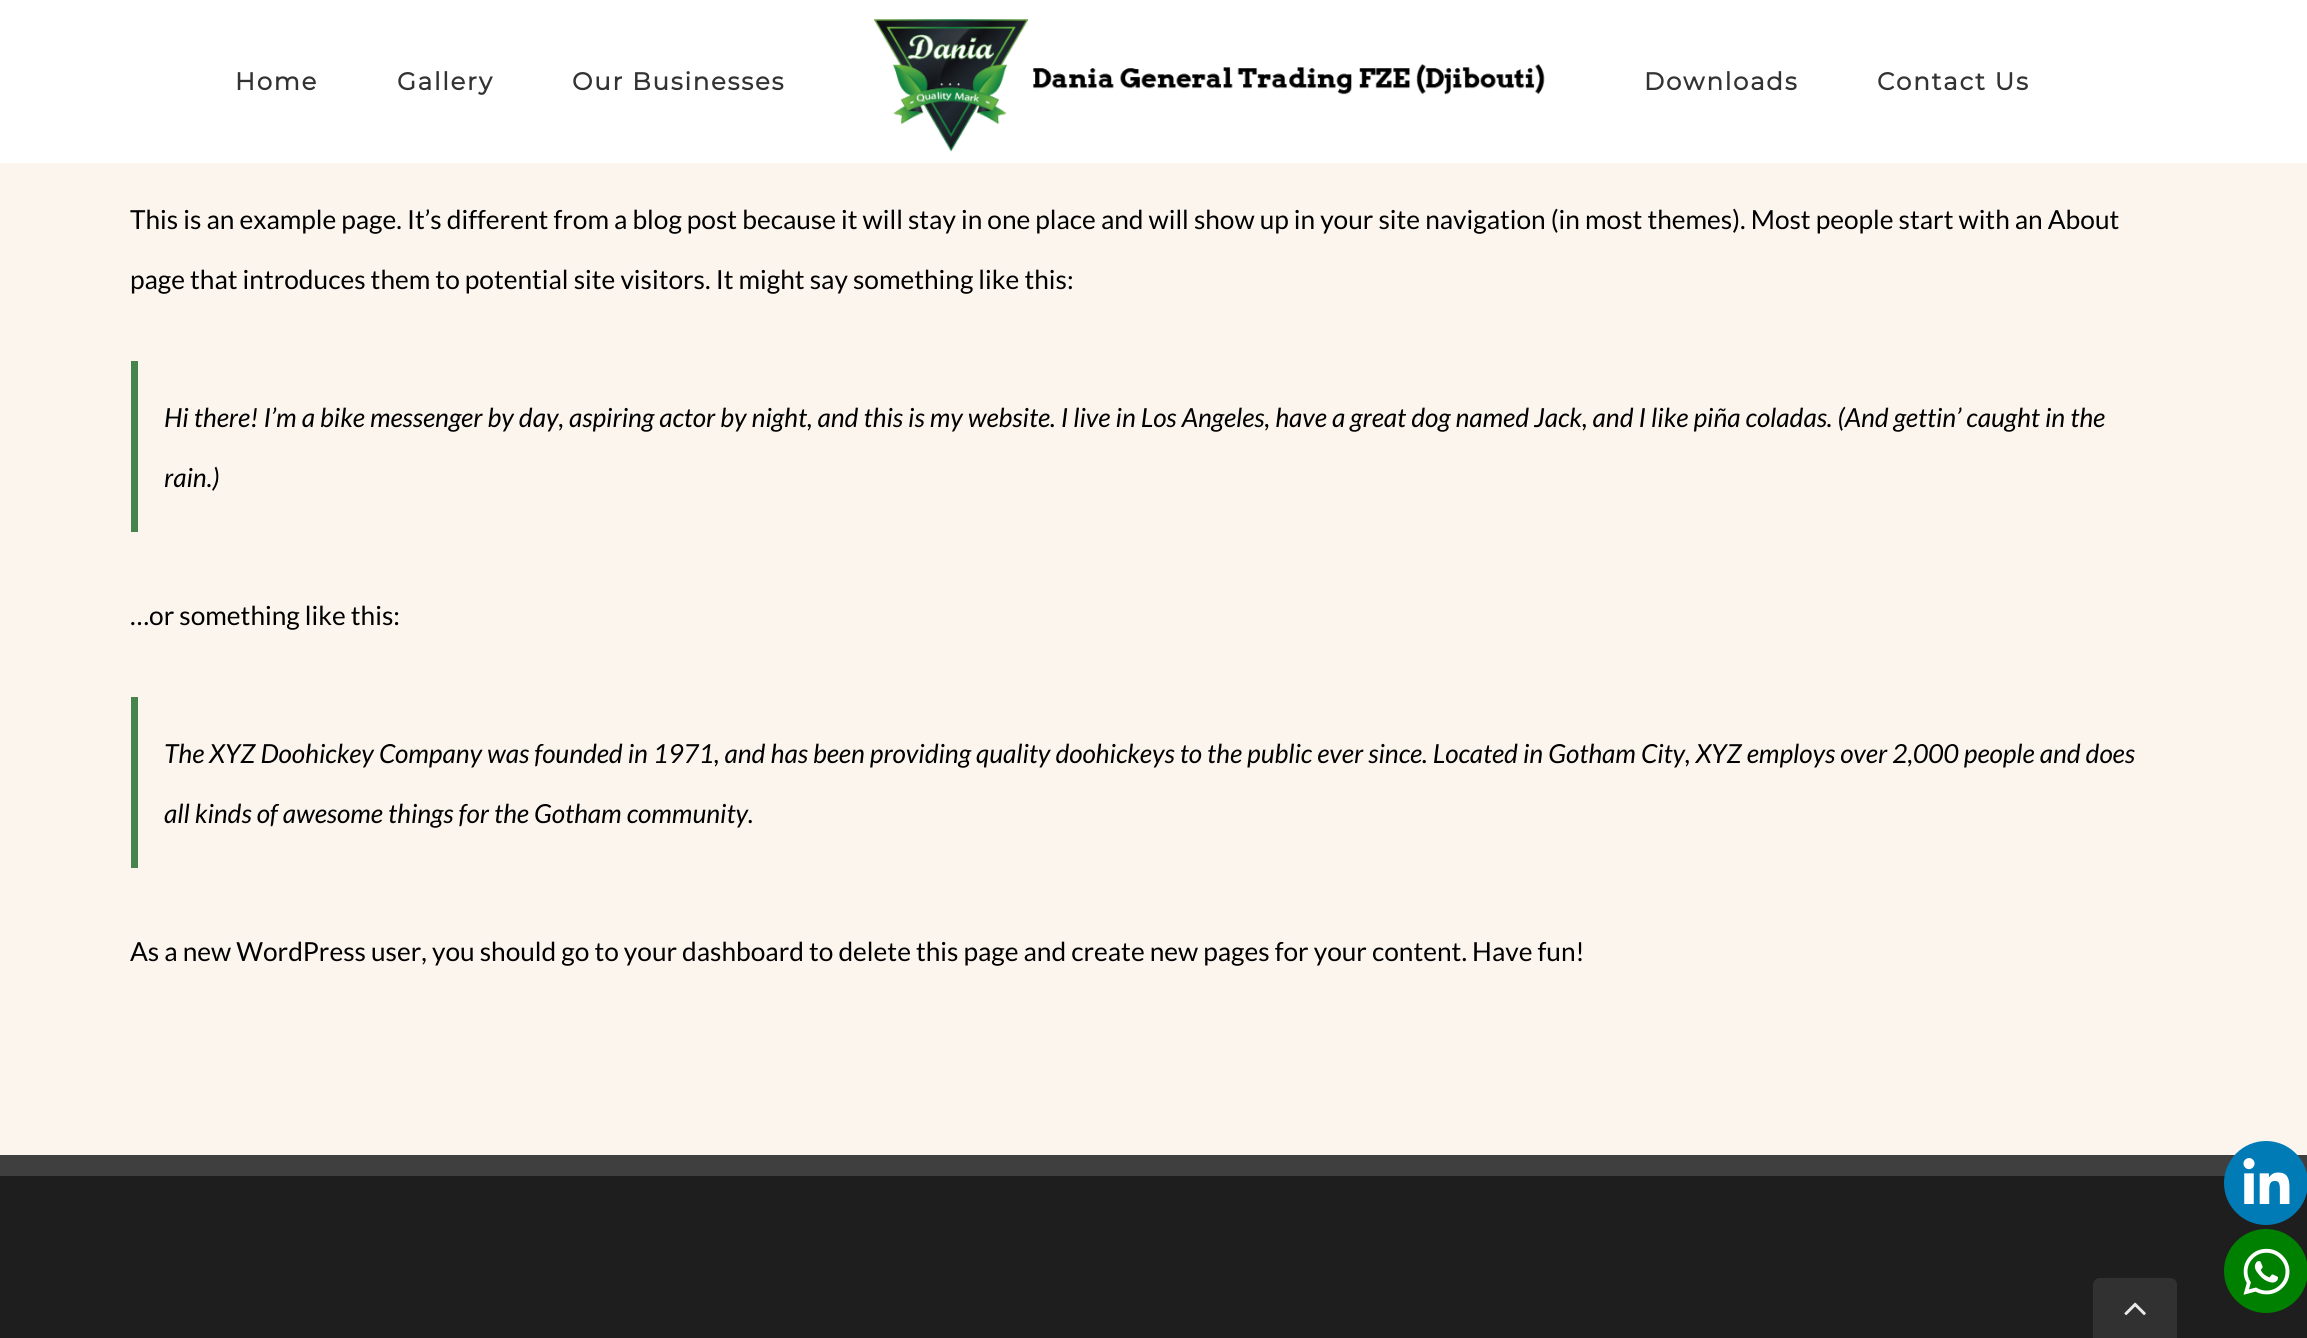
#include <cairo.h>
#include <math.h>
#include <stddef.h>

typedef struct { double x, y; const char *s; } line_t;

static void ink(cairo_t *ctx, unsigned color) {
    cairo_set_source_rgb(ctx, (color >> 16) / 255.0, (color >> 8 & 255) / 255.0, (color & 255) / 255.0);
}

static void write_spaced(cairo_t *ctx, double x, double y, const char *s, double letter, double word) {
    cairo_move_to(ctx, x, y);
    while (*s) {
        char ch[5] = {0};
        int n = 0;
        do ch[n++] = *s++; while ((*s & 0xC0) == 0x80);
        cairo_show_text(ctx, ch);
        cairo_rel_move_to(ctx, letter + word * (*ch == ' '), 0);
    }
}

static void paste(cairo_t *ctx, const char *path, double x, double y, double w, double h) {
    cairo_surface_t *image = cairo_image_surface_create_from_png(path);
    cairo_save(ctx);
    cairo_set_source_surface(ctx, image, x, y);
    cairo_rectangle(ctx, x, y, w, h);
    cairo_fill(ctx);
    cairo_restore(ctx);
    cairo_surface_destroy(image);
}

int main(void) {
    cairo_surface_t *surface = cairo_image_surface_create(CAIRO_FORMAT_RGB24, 2307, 1338);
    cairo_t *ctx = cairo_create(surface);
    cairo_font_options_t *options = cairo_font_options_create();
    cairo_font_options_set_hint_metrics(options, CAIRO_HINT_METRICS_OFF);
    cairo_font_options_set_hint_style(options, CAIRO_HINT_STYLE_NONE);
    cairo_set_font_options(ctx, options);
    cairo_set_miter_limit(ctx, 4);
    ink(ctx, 0xFCF5EE);
    cairo_paint(ctx);
    ink(ctx, 0xFFFFFF);
    cairo_rectangle(ctx, 0, 0, 2307, 163);
    cairo_fill(ctx);
    cairo_select_font_face(ctx, "Montserrat", CAIRO_FONT_SLANT_NORMAL, CAIRO_FONT_WEIGHT_BOLD);
    cairo_set_font_size(ctx, 24.5);
    ink(ctx, 0x333333);
    {
        static const line_t items[] = {
            {235, 90, "Home"},
            {397, 90, "Gallery"},
            {572, 90, "Our Businesses"},
        };
        for (size_t i = 0; i < sizeof items / sizeof *items; i++) {
            write_spaced(ctx, items[i].x, items[i].y, items[i].s, 1.75, 0);
        }
    }
    paste(ctx, "media/1.png", 874, 19, 671, 133);
    write_spaced(ctx, 1644, 90, "Downloads", 1.75, 0);
    write_spaced(ctx, 1877, 90, "Contact Us", 1.75, 0);
    cairo_select_font_face(ctx, "Lato", CAIRO_FONT_SLANT_NORMAL, CAIRO_FONT_WEIGHT_NORMAL);
    cairo_set_font_size(ctx, 26.25);
    ink(ctx, 0x000000);
    cairo_move_to(ctx, 130, 229);
    cairo_show_text(ctx, "This is an example page. It’s different from a blog post because it will stay in one place and will show up in your site navigation (in most themes). Most people start with an About");
    cairo_move_to(ctx, 130, 289);
    cairo_show_text(ctx, "page that introduces them to potential site visitors. It might say something like this:");
    ink(ctx, 0x47844B);
    cairo_rectangle(ctx, 131, 361, 7, 171);
    cairo_fill(ctx);
    cairo_select_font_face(ctx, "Lato", CAIRO_FONT_SLANT_ITALIC, CAIRO_FONT_WEIGHT_NORMAL);
    ink(ctx, 0x000000);
    cairo_move_to(ctx, 164, 427);
    cairo_show_text(ctx, "Hi there! I’m a bike messenger by day, aspiring actor by night, and this is my website. I live in Los Angeles, have a great dog named Jack, and I like piña coladas. (And gettin’ caught in the");
    cairo_move_to(ctx, 164, 487);
    cairo_show_text(ctx, "rain.)");
    cairo_select_font_face(ctx, "Lato", CAIRO_FONT_SLANT_NORMAL, CAIRO_FONT_WEIGHT_NORMAL);
    cairo_move_to(ctx, 130, 625);
    cairo_show_text(ctx, "…or something like this:");
    ink(ctx, 0x47844B);
    cairo_rectangle(ctx, 131, 697, 7, 171);
    cairo_fill(ctx);
    cairo_select_font_face(ctx, "Lato", CAIRO_FONT_SLANT_ITALIC, CAIRO_FONT_WEIGHT_NORMAL);
    ink(ctx, 0x000000);
    cairo_move_to(ctx, 164, 763);
    cairo_show_text(ctx, "The XYZ Doohickey Company was founded in 1971, and has been providing quality doohickeys to the public ever since. Located in Gotham City, XYZ employs over 2,000 people and does");
    cairo_move_to(ctx, 164, 823);
    cairo_show_text(ctx, "all kinds of awesome things for the Gotham community.");
    cairo_select_font_face(ctx, "Lato", CAIRO_FONT_SLANT_NORMAL, CAIRO_FONT_WEIGHT_NORMAL);
    cairo_move_to(ctx, 130, 961);
    cairo_show_text(ctx, "As a new WordPress user, you should go to your dashboard to delete this page and create new pages for your content. Have fun!");
    ink(ctx, 0x1E1E1E);
    cairo_rectangle(ctx, 0, 1176, 2307, 162);
    cairo_fill(ctx);
    ink(ctx, 0x3F3F3F);
    cairo_rectangle(ctx, 0, 1155, 2307, 21);
    cairo_fill(ctx);
    ink(ctx, 0x313131);
    cairo_new_path(ctx);
    cairo_move_to(ctx, 2100, 1278);
    cairo_line_to(ctx, 2170, 1278);
    cairo_curve_to(ctx, 2174, 1278, 2177, 1281, 2177, 1285);
    cairo_line_to(ctx, 2177, 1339);
    cairo_line_to(ctx, 2093, 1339);
    cairo_line_to(ctx, 2093, 1285);
    cairo_curve_to(ctx, 2093, 1281, 2096, 1278, 2100, 1278);
    cairo_close_path(ctx);
    cairo_fill(ctx);
    paste(ctx, "media/2.png", 2124, 1302, 22, 14);
    ink(ctx, 0x007BB6);
    cairo_arc(ctx, 2266, 1183, 42, 0, 2 * M_PI);
    cairo_fill(ctx);
    paste(ctx, "media/3.png", 2243, 1158, 47, 46);
    ink(ctx, 0x008000);
    cairo_arc(ctx, 2266, 1271, 42, 0, 2 * M_PI);
    cairo_fill(ctx);
    paste(ctx, "media/4.png", 2243, 1248, 47, 47);
    cairo_surface_write_to_png(surface, "image.png");
    cairo_font_options_destroy(options);
    cairo_destroy(ctx);
    cairo_surface_destroy(surface);
    return 0;
}
